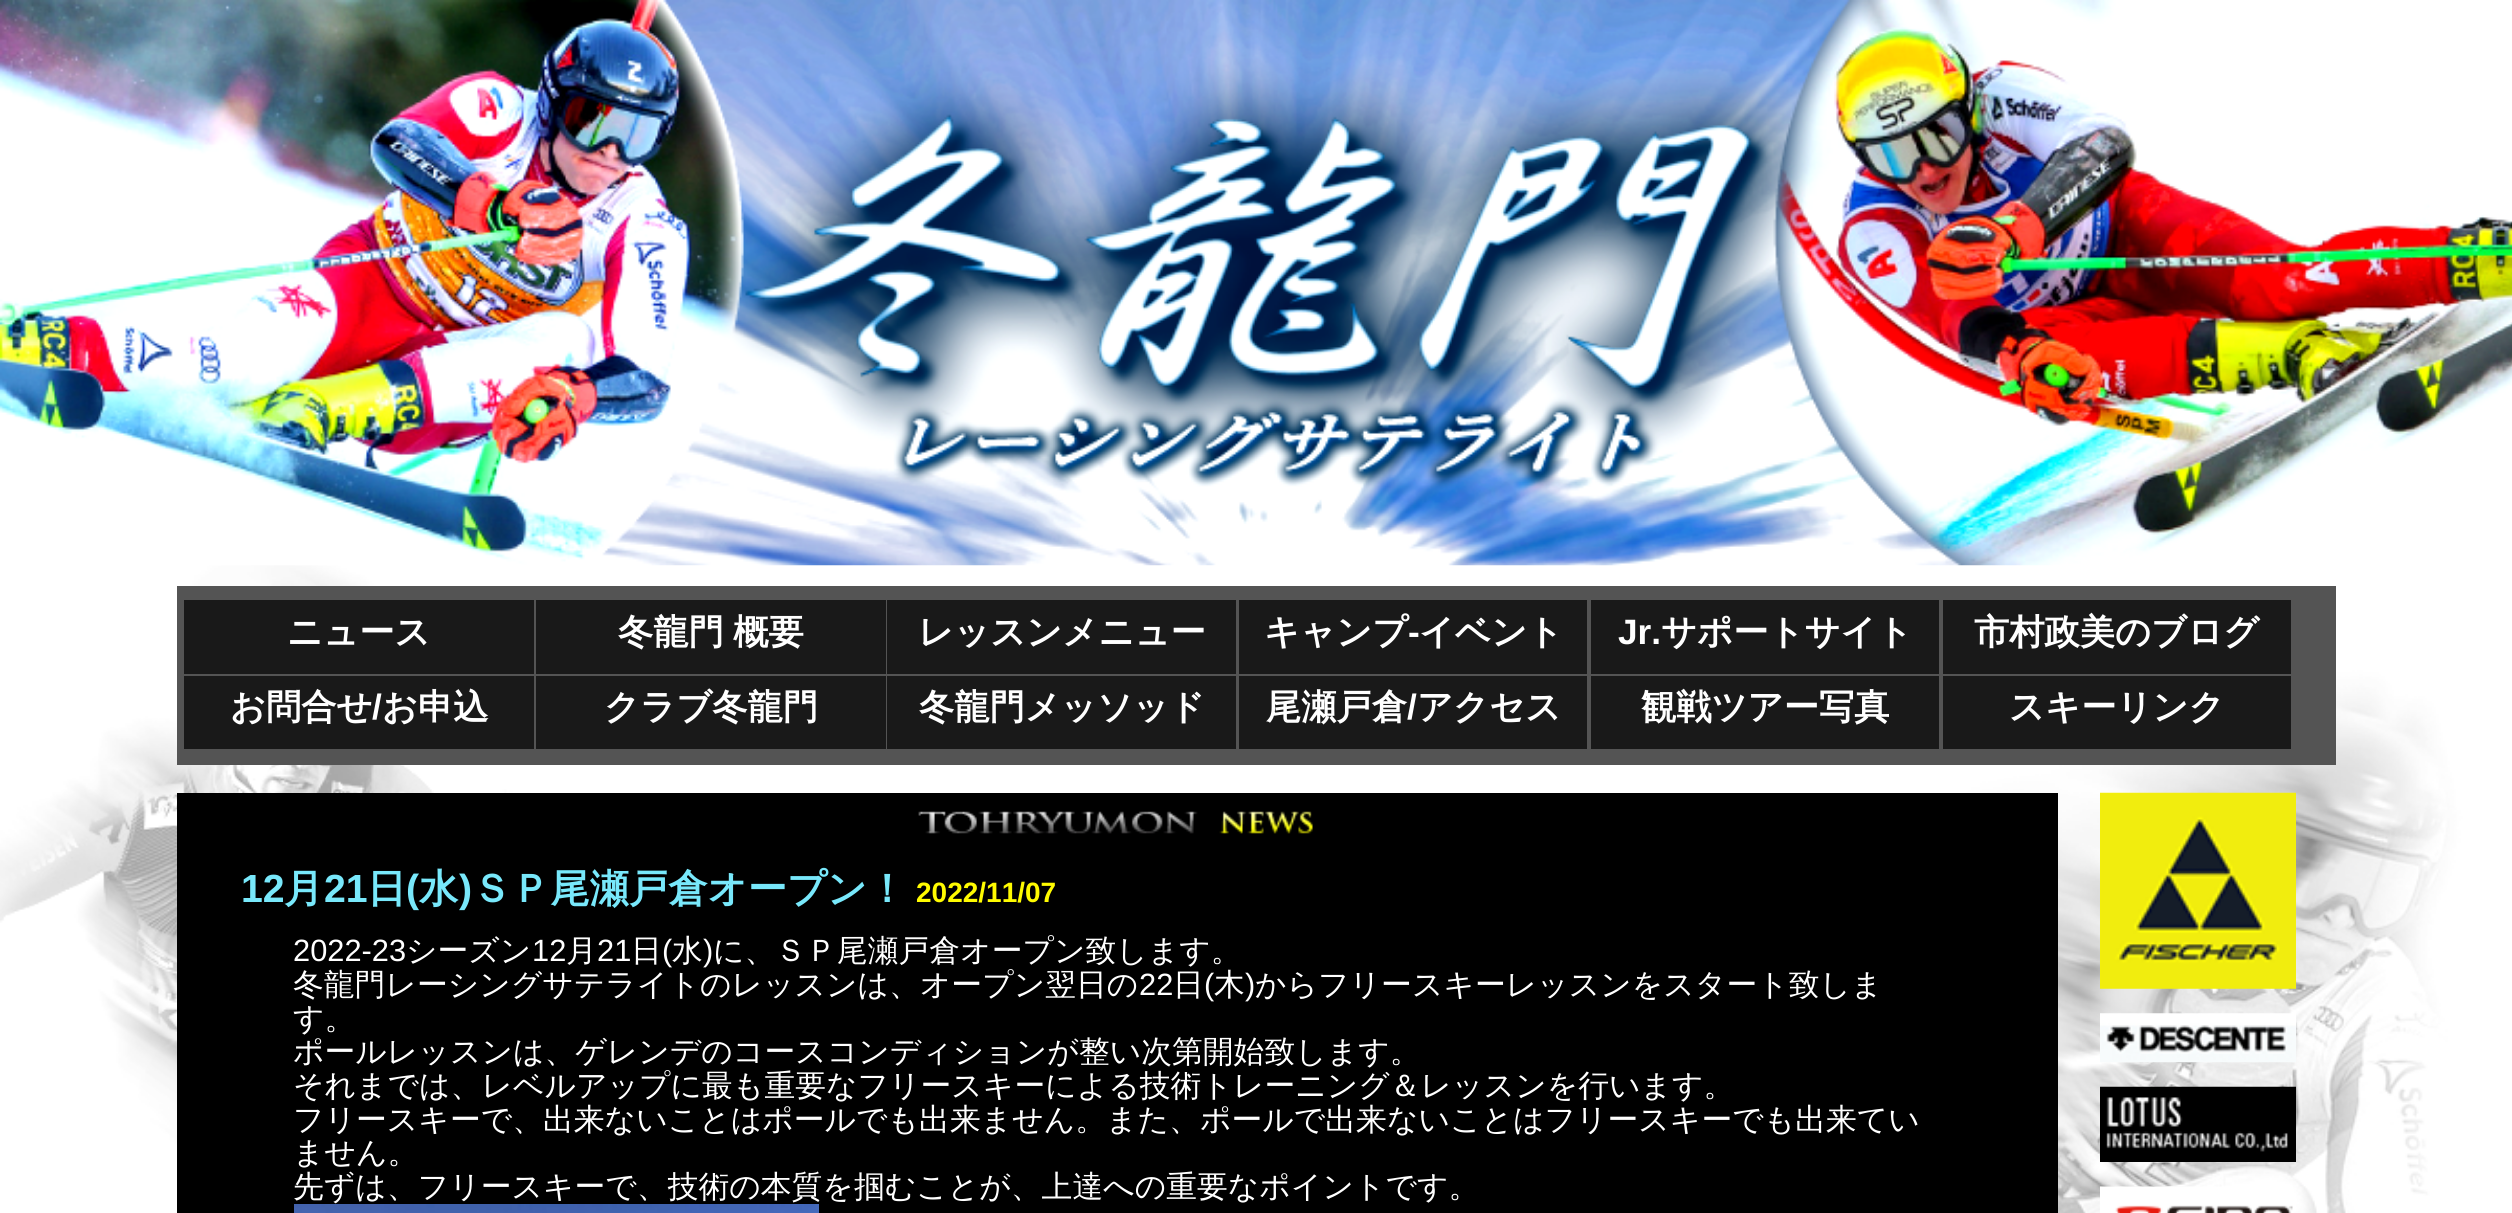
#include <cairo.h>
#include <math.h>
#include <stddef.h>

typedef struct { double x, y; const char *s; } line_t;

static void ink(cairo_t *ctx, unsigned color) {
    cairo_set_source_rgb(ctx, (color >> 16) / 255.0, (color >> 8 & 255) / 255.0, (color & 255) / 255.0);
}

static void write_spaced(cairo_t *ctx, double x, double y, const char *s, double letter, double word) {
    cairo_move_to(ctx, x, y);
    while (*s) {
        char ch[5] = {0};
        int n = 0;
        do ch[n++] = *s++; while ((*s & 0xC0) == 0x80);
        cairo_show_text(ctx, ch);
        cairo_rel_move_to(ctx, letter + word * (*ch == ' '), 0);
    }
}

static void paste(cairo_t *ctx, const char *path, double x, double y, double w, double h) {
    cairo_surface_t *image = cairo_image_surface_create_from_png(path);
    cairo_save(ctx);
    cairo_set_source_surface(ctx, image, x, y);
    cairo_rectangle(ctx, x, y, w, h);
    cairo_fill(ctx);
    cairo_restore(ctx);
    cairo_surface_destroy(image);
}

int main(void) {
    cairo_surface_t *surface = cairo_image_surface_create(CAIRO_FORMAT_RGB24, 2512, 1213);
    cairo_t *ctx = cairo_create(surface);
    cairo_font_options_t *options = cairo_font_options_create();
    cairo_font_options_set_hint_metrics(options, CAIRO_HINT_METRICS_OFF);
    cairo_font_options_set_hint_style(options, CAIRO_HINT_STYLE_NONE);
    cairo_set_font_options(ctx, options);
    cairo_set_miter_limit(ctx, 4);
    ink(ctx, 0xFFFFFF);
    cairo_paint(ctx);
    paste(ctx, "media/1.png", 0, 565, 2512, 648);
    paste(ctx, "media/2.png", 0, 0, 2512, 566);
    ink(ctx, 0x545454);
    cairo_rectangle(ctx, 177, 586, 2159, 179);
    cairo_fill(ctx);
    ink(ctx, 0x191919);
    cairo_rectangle(ctx, 184, 600, 350, 74);
    cairo_fill(ctx);
    cairo_select_font_face(ctx, "WenQuanYi Zen Hei", CAIRO_FONT_SLANT_NORMAL, CAIRO_FONT_WEIGHT_BOLD);
    cairo_set_font_size(ctx, 35.25);
    ink(ctx, 0xFFFFFF);
    cairo_move_to(ctx, 287, 644);
    cairo_show_text(ctx, "ニュース");
    ink(ctx, 0x191919);
    cairo_rectangle(ctx, 536, 600, 350, 74);
    cairo_fill(ctx);
    ink(ctx, 0xFFFFFF);
    write_spaced(ctx, 618, 644, "冬龍門 概要", 0, -1);
    ink(ctx, 0x191919);
    cairo_rectangle(ctx, 887, 600, 349, 74);
    cairo_fill(ctx);
    ink(ctx, 0xFFFFFF);
    cairo_move_to(ctx, 918, 644);
    cairo_show_text(ctx, "レッスンメニュー");
    ink(ctx, 0x191919);
    cairo_rectangle(ctx, 1239, 600, 348, 74);
    cairo_fill(ctx);
    ink(ctx, 0xFFFFFF);
    cairo_move_to(ctx, 1264, 644);
    cairo_show_text(ctx, "キャンプ");
    cairo_select_font_face(ctx, "Liberation Sans", CAIRO_FONT_SLANT_NORMAL, CAIRO_FONT_WEIGHT_BOLD);
    cairo_move_to(ctx, 1408, 644);
    cairo_show_text(ctx, "-");
    cairo_select_font_face(ctx, "WenQuanYi Zen Hei", CAIRO_FONT_SLANT_NORMAL, CAIRO_FONT_WEIGHT_BOLD);
    cairo_move_to(ctx, 1419, 644);
    cairo_show_text(ctx, "イベント");
    ink(ctx, 0x191919);
    cairo_rectangle(ctx, 1591, 600, 348, 74);
    cairo_fill(ctx);
    cairo_select_font_face(ctx, "Liberation Sans", CAIRO_FONT_SLANT_NORMAL, CAIRO_FONT_WEIGHT_BOLD);
    ink(ctx, 0xFFFFFF);
    cairo_move_to(ctx, 1618, 644);
    cairo_show_text(ctx, "Jr.");
    cairo_select_font_face(ctx, "WenQuanYi Zen Hei", CAIRO_FONT_SLANT_NORMAL, CAIRO_FONT_WEIGHT_BOLD);
    cairo_move_to(ctx, 1661, 644);
    cairo_show_text(ctx, "サポートサイト");
    ink(ctx, 0x191919);
    cairo_rectangle(ctx, 1943, 600, 348, 74);
    cairo_fill(ctx);
    ink(ctx, 0xFFFFFF);
    cairo_move_to(ctx, 1974, 644);
    cairo_show_text(ctx, "市村政美のブログ");
    ink(ctx, 0x191919);
    cairo_rectangle(ctx, 184, 676, 350, 73);
    cairo_fill(ctx);
    ink(ctx, 0xFFFFFF);
    cairo_move_to(ctx, 230, 719);
    cairo_show_text(ctx, "お問合せ");
    cairo_select_font_face(ctx, "Liberation Sans", CAIRO_FONT_SLANT_NORMAL, CAIRO_FONT_WEIGHT_BOLD);
    cairo_move_to(ctx, 372, 719);
    cairo_show_text(ctx, "/");
    cairo_select_font_face(ctx, "WenQuanYi Zen Hei", CAIRO_FONT_SLANT_NORMAL, CAIRO_FONT_WEIGHT_BOLD);
    cairo_move_to(ctx, 382, 719);
    cairo_show_text(ctx, "お申込");
    ink(ctx, 0x191919);
    cairo_rectangle(ctx, 536, 676, 350, 73);
    cairo_fill(ctx);
    ink(ctx, 0xFFFFFF);
    cairo_move_to(ctx, 604, 719);
    cairo_show_text(ctx, "クラブ冬龍門");
    ink(ctx, 0x191919);
    cairo_rectangle(ctx, 887, 676, 349, 73);
    cairo_fill(ctx);
    ink(ctx, 0xFFFFFF);
    cairo_move_to(ctx, 919, 719);
    cairo_show_text(ctx, "冬龍門メッソッド");
    ink(ctx, 0x191919);
    cairo_rectangle(ctx, 1239, 676, 348, 73);
    cairo_fill(ctx);
    ink(ctx, 0xFFFFFF);
    cairo_move_to(ctx, 1266, 719);
    cairo_show_text(ctx, "尾瀬戸倉");
    cairo_select_font_face(ctx, "Liberation Sans", CAIRO_FONT_SLANT_NORMAL, CAIRO_FONT_WEIGHT_BOLD);
    cairo_move_to(ctx, 1407, 719);
    cairo_show_text(ctx, "/");
    cairo_select_font_face(ctx, "WenQuanYi Zen Hei", CAIRO_FONT_SLANT_NORMAL, CAIRO_FONT_WEIGHT_BOLD);
    cairo_move_to(ctx, 1417, 719);
    cairo_show_text(ctx, "アクセス");
    ink(ctx, 0x191919);
    cairo_rectangle(ctx, 1591, 676, 348, 73);
    cairo_fill(ctx);
    ink(ctx, 0xFFFFFF);
    cairo_move_to(ctx, 1641, 719);
    cairo_show_text(ctx, "観戦ツアー写真");
    ink(ctx, 0x191919);
    cairo_rectangle(ctx, 1943, 676, 348, 73);
    cairo_fill(ctx);
    ink(ctx, 0xFFFFFF);
    cairo_move_to(ctx, 2009, 719);
    cairo_show_text(ctx, "スキーリンク");
    ink(ctx, 0x000000);
    cairo_rectangle(ctx, 177, 793, 1881, 420);
    cairo_fill(ctx);
    paste(ctx, "media/3.png", 918, 811, 395, 23);
    cairo_select_font_face(ctx, "Liberation Sans", CAIRO_FONT_SLANT_NORMAL, CAIRO_FONT_WEIGHT_BOLD);
    cairo_set_font_size(ctx, 39.25);
    ink(ctx, 0x78E8FB);
    cairo_move_to(ctx, 241, 902);
    cairo_show_text(ctx, "12");
    cairo_select_font_face(ctx, "WenQuanYi Zen Hei", CAIRO_FONT_SLANT_NORMAL, CAIRO_FONT_WEIGHT_BOLD);
    cairo_move_to(ctx, 284, 902);
    cairo_show_text(ctx, "月");
    cairo_select_font_face(ctx, "Liberation Sans", CAIRO_FONT_SLANT_NORMAL, CAIRO_FONT_WEIGHT_BOLD);
    cairo_move_to(ctx, 324, 902);
    cairo_show_text(ctx, "21");
    cairo_select_font_face(ctx, "WenQuanYi Zen Hei", CAIRO_FONT_SLANT_NORMAL, CAIRO_FONT_WEIGHT_BOLD);
    cairo_move_to(ctx, 367, 902);
    cairo_show_text(ctx, "日");
    cairo_select_font_face(ctx, "Liberation Sans", CAIRO_FONT_SLANT_NORMAL, CAIRO_FONT_WEIGHT_BOLD);
    cairo_move_to(ctx, 406, 902);
    cairo_show_text(ctx, "(");
    cairo_select_font_face(ctx, "WenQuanYi Zen Hei", CAIRO_FONT_SLANT_NORMAL, CAIRO_FONT_WEIGHT_BOLD);
    cairo_move_to(ctx, 419, 902);
    cairo_show_text(ctx, "水");
    cairo_select_font_face(ctx, "Liberation Sans", CAIRO_FONT_SLANT_NORMAL, CAIRO_FONT_WEIGHT_BOLD);
    cairo_move_to(ctx, 459, 902);
    cairo_show_text(ctx, ")");
    cairo_select_font_face(ctx, "WenQuanYi Zen Hei", CAIRO_FONT_SLANT_NORMAL, CAIRO_FONT_WEIGHT_BOLD);
    cairo_move_to(ctx, 472, 902);
    cairo_show_text(ctx, "ＳＰ尾瀬戸倉オープン！");
    cairo_select_font_face(ctx, "Liberation Sans", CAIRO_FONT_SLANT_NORMAL, CAIRO_FONT_WEIGHT_BOLD);
    cairo_set_font_size(ctx, 28);
    ink(ctx, 0xFFFB00);
    cairo_move_to(ctx, 916, 902);
    cairo_show_text(ctx, "2022/11/07");
    cairo_select_font_face(ctx, "Liberation Sans", CAIRO_FONT_SLANT_NORMAL, CAIRO_FONT_WEIGHT_NORMAL);
    cairo_set_font_size(ctx, 30.8);
    ink(ctx, 0xFFFFFF);
    cairo_move_to(ctx, 293, 961);
    cairo_show_text(ctx, "2022-23");
    cairo_select_font_face(ctx, "WenQuanYi Zen Hei Medium", CAIRO_FONT_SLANT_NORMAL, CAIRO_FONT_WEIGHT_NORMAL);
    cairo_move_to(ctx, 406, 961);
    cairo_show_text(ctx, "シーズン");
    cairo_select_font_face(ctx, "Liberation Sans", CAIRO_FONT_SLANT_NORMAL, CAIRO_FONT_WEIGHT_NORMAL);
    cairo_move_to(ctx, 532, 961);
    cairo_show_text(ctx, "12");
    cairo_select_font_face(ctx, "WenQuanYi Zen Hei Medium", CAIRO_FONT_SLANT_NORMAL, CAIRO_FONT_WEIGHT_NORMAL);
    cairo_move_to(ctx, 566, 961);
    cairo_show_text(ctx, "月");
    cairo_select_font_face(ctx, "Liberation Sans", CAIRO_FONT_SLANT_NORMAL, CAIRO_FONT_WEIGHT_NORMAL);
    cairo_move_to(ctx, 597, 961);
    cairo_show_text(ctx, "21");
    cairo_select_font_face(ctx, "WenQuanYi Zen Hei Medium", CAIRO_FONT_SLANT_NORMAL, CAIRO_FONT_WEIGHT_NORMAL);
    cairo_move_to(ctx, 631, 961);
    cairo_show_text(ctx, "日");
    cairo_select_font_face(ctx, "Liberation Sans", CAIRO_FONT_SLANT_NORMAL, CAIRO_FONT_WEIGHT_NORMAL);
    cairo_move_to(ctx, 662, 961);
    cairo_show_text(ctx, "(");
    cairo_select_font_face(ctx, "WenQuanYi Zen Hei Medium", CAIRO_FONT_SLANT_NORMAL, CAIRO_FONT_WEIGHT_NORMAL);
    cairo_move_to(ctx, 672, 961);
    cairo_show_text(ctx, "水");
    cairo_select_font_face(ctx, "Liberation Sans", CAIRO_FONT_SLANT_NORMAL, CAIRO_FONT_WEIGHT_NORMAL);
    cairo_move_to(ctx, 703, 961);
    cairo_show_text(ctx, ")");
    cairo_select_font_face(ctx, "WenQuanYi Zen Hei Medium", CAIRO_FONT_SLANT_NORMAL, CAIRO_FONT_WEIGHT_NORMAL);
    cairo_move_to(ctx, 713, 961);
    cairo_show_text(ctx, "に、ＳＰ尾瀬戸倉オープン致します。");
    cairo_move_to(ctx, 293, 995);
    cairo_show_text(ctx, "冬龍門レーシングサテライトのレッスンは、オープン翌日の");
    cairo_select_font_face(ctx, "Liberation Sans", CAIRO_FONT_SLANT_NORMAL, CAIRO_FONT_WEIGHT_NORMAL);
    cairo_move_to(ctx, 1139, 995);
    cairo_show_text(ctx, "22");
    cairo_select_font_face(ctx, "WenQuanYi Zen Hei Medium", CAIRO_FONT_SLANT_NORMAL, CAIRO_FONT_WEIGHT_NORMAL);
    cairo_move_to(ctx, 1173, 995);
    cairo_show_text(ctx, "日");
    cairo_select_font_face(ctx, "Liberation Sans", CAIRO_FONT_SLANT_NORMAL, CAIRO_FONT_WEIGHT_NORMAL);
    cairo_move_to(ctx, 1204, 995);
    cairo_show_text(ctx, "(");
    cairo_select_font_face(ctx, "WenQuanYi Zen Hei Medium", CAIRO_FONT_SLANT_NORMAL, CAIRO_FONT_WEIGHT_NORMAL);
    cairo_move_to(ctx, 1214, 995);
    cairo_show_text(ctx, "木");
    cairo_select_font_face(ctx, "Liberation Sans", CAIRO_FONT_SLANT_NORMAL, CAIRO_FONT_WEIGHT_NORMAL);
    cairo_move_to(ctx, 1245, 995);
    cairo_show_text(ctx, ")");
    cairo_select_font_face(ctx, "WenQuanYi Zen Hei Medium", CAIRO_FONT_SLANT_NORMAL, CAIRO_FONT_WEIGHT_NORMAL);
    {
        static const line_t items[] = {
            {1255, 995, "からフリースキーレッスンをスタート致しま"},
            {293, 1029, "す。"},
            {293, 1062, "ポールレッスンは、ゲレンデのコースコンディションが整い次第開始致します。"},
            {293, 1096, "それまでは、レベルアップに最も重要なフリースキーによる技術トレーニング＆レッスンを行います。"},
            {293, 1130, "フリースキーで、出来ないことはポールでも出来ません。また、ポールで出来ないことはフリースキーでも出来てい"},
            {293, 1163, "ません。"},
            {293, 1197, "先ずは、フリースキーで、技術の本質を掴むことが、上達への重要なポイントです。"},
        };
        for (size_t i = 0; i < sizeof items / sizeof *items; i++) {
            cairo_move_to(ctx, items[i].x, items[i].y);
            cairo_show_text(ctx, items[i].s);
        }
    }
    paste(ctx, "media/4.png", 294, 1204, 525, 9);
    paste(ctx, "media/5.png", 2100, 792, 196, 197);
    paste(ctx, "media/6.png", 2100, 1013, 196, 50);
    paste(ctx, "media/7.png", 2100, 1086, 196, 76);
    paste(ctx, "media/8.png", 2100, 1186, 193, 27);
    cairo_surface_write_to_png(surface, "image.png");
    cairo_font_options_destroy(options);
    cairo_destroy(ctx);
    cairo_surface_destroy(surface);
    return 0;
}
